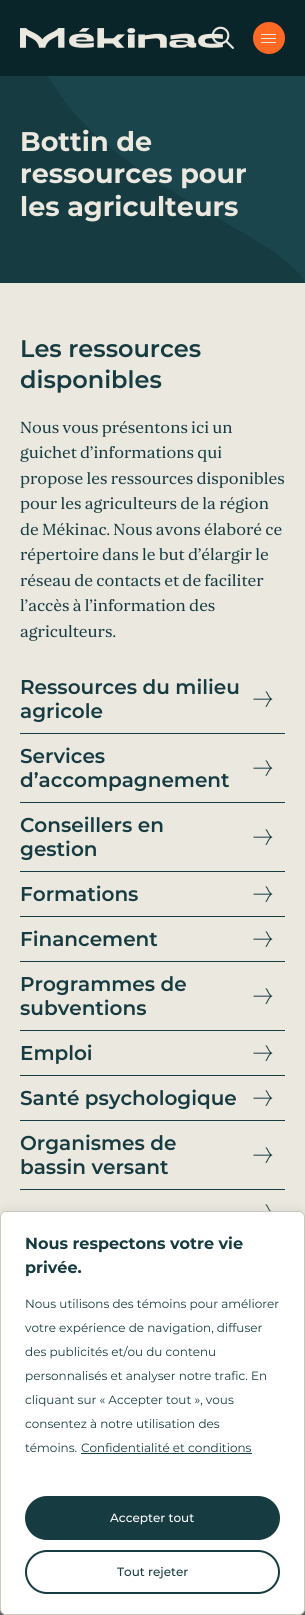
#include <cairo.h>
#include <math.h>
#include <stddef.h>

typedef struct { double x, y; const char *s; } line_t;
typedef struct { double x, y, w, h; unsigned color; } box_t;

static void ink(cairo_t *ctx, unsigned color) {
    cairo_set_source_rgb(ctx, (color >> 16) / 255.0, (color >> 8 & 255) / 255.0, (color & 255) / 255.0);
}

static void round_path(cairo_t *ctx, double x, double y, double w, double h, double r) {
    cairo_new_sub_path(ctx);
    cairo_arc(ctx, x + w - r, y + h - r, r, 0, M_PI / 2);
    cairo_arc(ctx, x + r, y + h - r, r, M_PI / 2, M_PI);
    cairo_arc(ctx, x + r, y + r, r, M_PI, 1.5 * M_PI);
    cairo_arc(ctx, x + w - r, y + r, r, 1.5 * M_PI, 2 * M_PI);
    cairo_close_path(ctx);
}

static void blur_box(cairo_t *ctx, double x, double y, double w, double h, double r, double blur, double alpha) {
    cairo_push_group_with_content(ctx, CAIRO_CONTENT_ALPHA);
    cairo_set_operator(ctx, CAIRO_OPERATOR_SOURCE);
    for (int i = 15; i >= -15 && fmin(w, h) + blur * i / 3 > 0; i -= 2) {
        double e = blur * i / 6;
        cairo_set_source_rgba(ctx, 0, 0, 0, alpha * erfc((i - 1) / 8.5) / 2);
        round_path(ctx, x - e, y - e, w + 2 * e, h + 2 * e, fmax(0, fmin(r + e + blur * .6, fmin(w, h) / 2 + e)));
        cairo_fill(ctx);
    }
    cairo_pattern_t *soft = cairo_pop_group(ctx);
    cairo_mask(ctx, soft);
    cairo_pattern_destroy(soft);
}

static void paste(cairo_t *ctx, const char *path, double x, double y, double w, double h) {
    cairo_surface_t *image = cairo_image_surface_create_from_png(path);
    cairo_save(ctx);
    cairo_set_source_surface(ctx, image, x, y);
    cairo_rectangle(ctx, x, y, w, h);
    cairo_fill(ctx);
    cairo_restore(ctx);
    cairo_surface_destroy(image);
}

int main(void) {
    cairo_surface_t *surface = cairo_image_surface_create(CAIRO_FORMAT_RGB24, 305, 1615);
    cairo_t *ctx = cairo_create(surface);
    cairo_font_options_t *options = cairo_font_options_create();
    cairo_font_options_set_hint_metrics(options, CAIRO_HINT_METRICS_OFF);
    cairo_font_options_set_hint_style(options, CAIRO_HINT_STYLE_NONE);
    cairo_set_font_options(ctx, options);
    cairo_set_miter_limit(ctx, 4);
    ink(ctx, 0xEBE8DF);
    cairo_paint(ctx);
    ink(ctx, 0x0A2529);
    cairo_rectangle(ctx, 0, 0, 305, 76);
    cairo_fill(ctx);
    paste(ctx, "media/1.png", 211, 26, 23, 23);
    ink(ctx, 0xFF6924);
    cairo_arc(ctx, 269, 38, 16, 0, 2 * M_PI);
    cairo_fill(ctx);
    {
        static const box_t items[] = {
            {261, 38, 15, 1, 0xEBE8DF},
            {261, 34, 15, 1, 0xEBE8DF},
            {261, 42, 15, 1, 0xEBE8DF},
        };
        for (size_t i = 0; i < sizeof items / sizeof *items; i++) {
            ink(ctx, items[i].color);
            cairo_rectangle(ctx, items[i].x, items[i].y, items[i].w, items[i].h);
            cairo_fill(ctx);
        }
    }
    paste(ctx, "media/2.png", 20, 28, 203, 20);
    ink(ctx, 0x163B41);
    cairo_rectangle(ctx, 0, 76, 305, 207);
    cairo_fill(ctx);
    ink(ctx, 0x1B454C);
    cairo_new_path(ctx);
    cairo_move_to(ctx, 305, 76);
    cairo_line_to(ctx, 305, 283);
    cairo_curve_to(ctx, 286, 237, 111, 185, 52, 82);
    cairo_line_to(ctx, 48, 76);
    cairo_close_path(ctx);
    cairo_fill(ctx);
    cairo_select_font_face(ctx, "Montserrat", CAIRO_FONT_SLANT_NORMAL, CAIRO_FONT_WEIGHT_BOLD);
    cairo_set_font_size(ctx, 27);
    ink(ctx, 0xEBE8DF);
    {
        static const line_t items[] = {
            {20, 151, "Bottin de"},
            {20, 183, "ressources pour"},
            {20, 216, "les agriculteurs"},
        };
        for (size_t i = 0; i < sizeof items / sizeof *items; i++) {
            cairo_move_to(ctx, items[i].x, items[i].y);
            cairo_show_text(ctx, items[i].s);
        }
    }
    cairo_select_font_face(ctx, "Montserrat SemiBold", CAIRO_FONT_SLANT_NORMAL, CAIRO_FONT_WEIGHT_NORMAL);
    cairo_set_font_size(ctx, 24);
    ink(ctx, 0x163B41);
    cairo_move_to(ctx, 20, 357);
    cairo_show_text(ctx, "Les ressources");
    cairo_move_to(ctx, 20, 388);
    cairo_show_text(ctx, "disponibles");
    cairo_select_font_face(ctx, "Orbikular", CAIRO_FONT_SLANT_NORMAL, CAIRO_FONT_WEIGHT_NORMAL);
    cairo_set_font_size(ctx, 17);
    {
        static const line_t items[] = {
            {20, 433, "Nous vous présentons ici un"},
            {20, 458, "guichet d’informations qui"},
            {20, 484, "propose les ressources disponibles"},
            {20, 509, "pour les agriculteurs de la région"},
            {20, 535, "de Mékinac. Nous avons élaboré ce"},
            {20, 560, "répertoire dans le but d’élargir le"},
            {20, 586, "réseau de contacts et de faciliter"},
            {20, 611, "l’accès à l’information des"},
            {20, 637, "agriculteurs."},
        };
        for (size_t i = 0; i < sizeof items / sizeof *items; i++) {
            cairo_move_to(ctx, items[i].x, items[i].y);
            cairo_show_text(ctx, items[i].s);
        }
    }
    cairo_rectangle(ctx, 20, 733, 265, 1);
    cairo_fill(ctx);
    cairo_select_font_face(ctx, "Montserrat SemiBold", CAIRO_FONT_SLANT_NORMAL, CAIRO_FONT_WEIGHT_NORMAL);
    cairo_set_font_size(ctx, 20);
    cairo_move_to(ctx, 20, 694);
    cairo_show_text(ctx, "Ressources du milieu");
    paste(ctx, "media/3.png", 253, 691, 20, 17);
    cairo_move_to(ctx, 20, 718);
    cairo_show_text(ctx, "agricole");
    cairo_rectangle(ctx, 20, 802, 265, 1);
    cairo_fill(ctx);
    cairo_move_to(ctx, 20, 763);
    cairo_show_text(ctx, "Services");
    paste(ctx, "media/3.png", 253, 760, 20, 17);
    cairo_move_to(ctx, 20, 787);
    cairo_show_text(ctx, "d’accompagnement");
    cairo_rectangle(ctx, 20, 871, 265, 1);
    cairo_fill(ctx);
    cairo_move_to(ctx, 20, 832);
    cairo_show_text(ctx, "Conseillers en");
    paste(ctx, "media/3.png", 253, 829, 20, 17);
    cairo_move_to(ctx, 20, 856);
    cairo_show_text(ctx, "gestion");
    cairo_rectangle(ctx, 20, 916, 265, 1);
    cairo_fill(ctx);
    cairo_move_to(ctx, 20, 901);
    cairo_show_text(ctx, "Formations");
    paste(ctx, "media/3.png", 253, 886, 20, 17);
    cairo_rectangle(ctx, 20, 961, 265, 1);
    cairo_fill(ctx);
    cairo_move_to(ctx, 20, 946);
    cairo_show_text(ctx, "Financement");
    paste(ctx, "media/3.png", 253, 931, 20, 17);
    cairo_rectangle(ctx, 20, 1030, 265, 1);
    cairo_fill(ctx);
    cairo_move_to(ctx, 20, 991);
    cairo_show_text(ctx, "Programmes de");
    paste(ctx, "media/3.png", 253, 988, 20, 17);
    cairo_move_to(ctx, 20, 1015);
    cairo_show_text(ctx, "subventions");
    cairo_rectangle(ctx, 20, 1075, 265, 1);
    cairo_fill(ctx);
    cairo_move_to(ctx, 20, 1060);
    cairo_show_text(ctx, "Emploi");
    paste(ctx, "media/3.png", 253, 1045, 20, 17);
    cairo_rectangle(ctx, 20, 1120, 265, 1);
    cairo_fill(ctx);
    cairo_move_to(ctx, 20, 1105);
    cairo_show_text(ctx, "Santé psychologique");
    paste(ctx, "media/3.png", 253, 1090, 20, 17);
    cairo_rectangle(ctx, 20, 1189, 265, 1);
    cairo_fill(ctx);
    cairo_move_to(ctx, 20, 1150);
    cairo_show_text(ctx, "Organismes de");
    paste(ctx, "media/3.png", 253, 1147, 20, 17);
    cairo_move_to(ctx, 20, 1174);
    cairo_show_text(ctx, "bassin versant");
    paste(ctx, "media/4.png", 265, 1204, 6, 7);
    paste(ctx, "media/5.png", 0, 1609, 305, 6);
    ink(ctx, 0xACABAB);
    blur_box(ctx, 0, 1210, 305, 404, 6, 5, 0.3);
    ink(ctx, 0xFFFFFF);
    round_path(ctx, 0.5, 1211.5, 304, 403, 5.5);
    cairo_fill_preserve(ctx);
    ink(ctx, 0xCEC8BC);
    cairo_set_line_width(ctx, 1);
    cairo_stroke(ctx);
    cairo_select_font_face(ctx, "Montserrat", CAIRO_FONT_SLANT_NORMAL, CAIRO_FONT_WEIGHT_BOLD);
    cairo_set_font_size(ctx, 16);
    ink(ctx, 0x163B41);
    cairo_move_to(ctx, 25, 1249);
    cairo_show_text(ctx, "Nous respectons votre vie");
    cairo_move_to(ctx, 25, 1273);
    cairo_show_text(ctx, "privée.");
    cairo_select_font_face(ctx, "Montserrat", CAIRO_FONT_SLANT_NORMAL, CAIRO_FONT_WEIGHT_NORMAL);
    cairo_set_font_size(ctx, 12);
    {
        static const line_t items[] = {
            {25, 1308, "Nous utilisons des témoins pour améliorer"},
            {25, 1332, "votre expérience de navigation, diffuser"},
            {25, 1356, "des publicités et/ou du contenu"},
            {25, 1380, "personnalisés et analyser notre trafic. En"},
            {25, 1404, "cliquant sur « Accepter tout », vous"},
            {25, 1428, "consentez à notre utilisation des"},
            {25, 1452, "témoins."},
            {81, 1452, "Confidentialité et conditions"},
        };
        for (size_t i = 0; i < sizeof items / sizeof *items; i++) {
            cairo_move_to(ctx, items[i].x, items[i].y);
            cairo_show_text(ctx, items[i].s);
        }
    }
    cairo_rectangle(ctx, 81, 1453, 171, 1);
    cairo_fill(ctx);
    round_path(ctx, 26, 1497, 253, 42, 21);
    cairo_fill_preserve(ctx);
    cairo_set_line_width(ctx, 2);
    cairo_stroke(ctx);
    cairo_select_font_face(ctx, "Montserrat Medium", CAIRO_FONT_SLANT_NORMAL, CAIRO_FONT_WEIGHT_NORMAL);
    ink(ctx, 0xFFFFFF);
    cairo_move_to(ctx, 110, 1522);
    cairo_show_text(ctx, "Accepter tout");
    round_path(ctx, 26, 1551, 253, 42, 21);
    ink(ctx, 0x163B41);
    cairo_stroke(ctx);
    cairo_move_to(ctx, 117, 1576);
    cairo_show_text(ctx, "Tout rejeter");
    cairo_surface_write_to_png(surface, "image.png");
    cairo_font_options_destroy(options);
    cairo_destroy(ctx);
    cairo_surface_destroy(surface);
    return 0;
}
